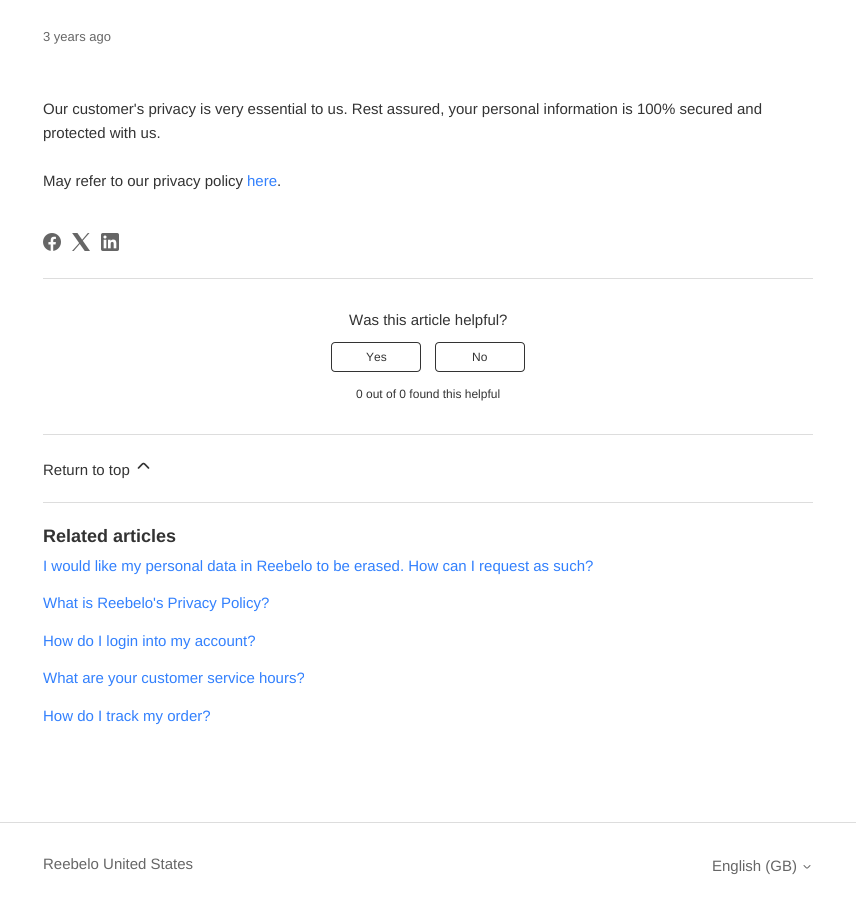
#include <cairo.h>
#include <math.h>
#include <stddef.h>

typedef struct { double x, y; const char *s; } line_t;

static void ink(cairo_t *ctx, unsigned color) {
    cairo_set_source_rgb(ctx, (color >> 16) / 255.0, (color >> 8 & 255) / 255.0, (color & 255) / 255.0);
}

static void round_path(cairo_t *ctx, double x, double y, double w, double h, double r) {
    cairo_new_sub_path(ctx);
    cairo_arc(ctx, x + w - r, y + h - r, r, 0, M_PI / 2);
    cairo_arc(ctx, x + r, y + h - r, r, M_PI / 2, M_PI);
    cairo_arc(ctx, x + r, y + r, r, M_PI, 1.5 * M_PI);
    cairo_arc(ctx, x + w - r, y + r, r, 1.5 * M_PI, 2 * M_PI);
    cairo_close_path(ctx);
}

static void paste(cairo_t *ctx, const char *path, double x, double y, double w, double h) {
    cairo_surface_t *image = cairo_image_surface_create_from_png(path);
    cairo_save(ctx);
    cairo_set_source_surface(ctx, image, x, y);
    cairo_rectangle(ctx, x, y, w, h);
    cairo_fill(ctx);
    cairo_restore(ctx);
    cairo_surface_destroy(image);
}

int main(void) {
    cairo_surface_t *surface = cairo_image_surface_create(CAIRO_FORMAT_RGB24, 856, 909);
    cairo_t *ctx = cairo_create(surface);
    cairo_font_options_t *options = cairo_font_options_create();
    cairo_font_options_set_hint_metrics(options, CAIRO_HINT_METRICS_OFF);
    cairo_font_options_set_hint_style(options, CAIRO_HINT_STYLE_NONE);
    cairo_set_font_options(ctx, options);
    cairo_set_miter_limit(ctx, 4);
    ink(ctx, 0xFFFFFF);
    cairo_paint(ctx);
    cairo_select_font_face(ctx, "Liberation Sans", CAIRO_FONT_SLANT_NORMAL, CAIRO_FONT_WEIGHT_NORMAL);
    cairo_set_font_size(ctx, 13);
    ink(ctx, 0x666666);
    cairo_move_to(ctx, 43, 41);
    cairo_show_text(ctx, "3 years ago");
    cairo_set_font_size(ctx, 15);
    ink(ctx, 0x333333);
    {
        static const line_t items[] = {
            {43, 114, "Our customer's privacy is very essential to us. Rest assured, your personal information is 100% secured and"},
            {43, 138, "protected with us."},
            {43, 186, "May refer to our privacy policy"},
        };
        for (size_t i = 0; i < sizeof items / sizeof *items; i++) {
            cairo_move_to(ctx, items[i].x, items[i].y);
            cairo_show_text(ctx, items[i].s);
        }
    }
    ink(ctx, 0x3280FD);
    cairo_move_to(ctx, 247, 186);
    cairo_show_text(ctx, "here");
    ink(ctx, 0x333333);
    cairo_move_to(ctx, 277, 186);
    cairo_show_text(ctx, ".");
    paste(ctx, "media/1.png", 43, 233, 18, 18);
    paste(ctx, "media/2.png", 72, 233, 18, 18);
    paste(ctx, "media/3.png", 101, 233, 18, 18);
    ink(ctx, 0xDDDDDD);
    cairo_rectangle(ctx, 43, 278, 770, 1);
    cairo_fill(ctx);
    ink(ctx, 0x333333);
    cairo_move_to(ctx, 349, 325);
    cairo_show_text(ctx, "Was this article helpful?");
    round_path(ctx, 331.5, 342.5, 89, 29, 3.5);
    cairo_set_line_width(ctx, 1);
    cairo_stroke(ctx);
    cairo_set_font_size(ctx, 12);
    cairo_move_to(ctx, 366, 361);
    cairo_show_text(ctx, "Yes");
    round_path(ctx, 435.5, 342.5, 89, 29, 3.5);
    cairo_stroke(ctx);
    cairo_move_to(ctx, 472, 361);
    cairo_show_text(ctx, "No");
    cairo_move_to(ctx, 356, 398);
    cairo_show_text(ctx, "0 out of 0 found this helpful");
    ink(ctx, 0xDDDDDD);
    cairo_rectangle(ctx, 43, 434, 770, 1);
    cairo_fill(ctx);
    cairo_set_font_size(ctx, 15);
    ink(ctx, 0x333333);
    cairo_move_to(ctx, 43, 475);
    cairo_show_text(ctx, "Return to top");
    cairo_new_path(ctx);
    cairo_move_to(ctx, 148.5, 468);
    cairo_curve_to(ctx, 142.5, 462, 144.5, 462, 138.5, 468);
    cairo_set_line_width(ctx, 1.7);
    cairo_set_line_cap(ctx, CAIRO_LINE_CAP_ROUND);
    cairo_stroke(ctx);
    ink(ctx, 0xDDDDDD);
    cairo_rectangle(ctx, 43, 502, 770, 1);
    cairo_fill(ctx);
    cairo_select_font_face(ctx, "Liberation Sans", CAIRO_FONT_SLANT_NORMAL, CAIRO_FONT_WEIGHT_BOLD);
    cairo_set_font_size(ctx, 18);
    ink(ctx, 0x333333);
    cairo_move_to(ctx, 43, 542);
    cairo_show_text(ctx, "Related articles");
    cairo_select_font_face(ctx, "Liberation Sans", CAIRO_FONT_SLANT_NORMAL, CAIRO_FONT_WEIGHT_NORMAL);
    cairo_set_font_size(ctx, 15);
    ink(ctx, 0x3280FD);
    {
        static const line_t items[] = {
            {43, 571, "I would like my personal data in Reebelo to be erased. How can I request as such?"},
            {43, 608, "What is Reebelo's Privacy Policy?"},
            {43, 646, "How do I login into my account?"},
            {43, 683, "What are your customer service hours?"},
            {43, 721, "How do I track my order?"},
        };
        for (size_t i = 0; i < sizeof items / sizeof *items; i++) {
            cairo_move_to(ctx, items[i].x, items[i].y);
            cairo_show_text(ctx, items[i].s);
        }
    }
    ink(ctx, 0xDDDDDD);
    cairo_rectangle(ctx, 0, 822, 856, 1);
    cairo_fill(ctx);
    ink(ctx, 0x666666);
    cairo_move_to(ctx, 43, 869);
    cairo_show_text(ctx, "Reebelo United States");
    cairo_move_to(ctx, 712, 871);
    cairo_show_text(ctx, "English (GB)");
    cairo_new_path(ctx);
    cairo_move_to(ctx, 804, 865.5);
    cairo_curve_to(ctx, 807.5, 869, 806.5, 869, 810, 865.5);
    cairo_set_line_width(ctx, 1);
    cairo_stroke(ctx);
    cairo_surface_write_to_png(surface, "image.png");
    cairo_font_options_destroy(options);
    cairo_destroy(ctx);
    cairo_surface_destroy(surface);
    return 0;
}
